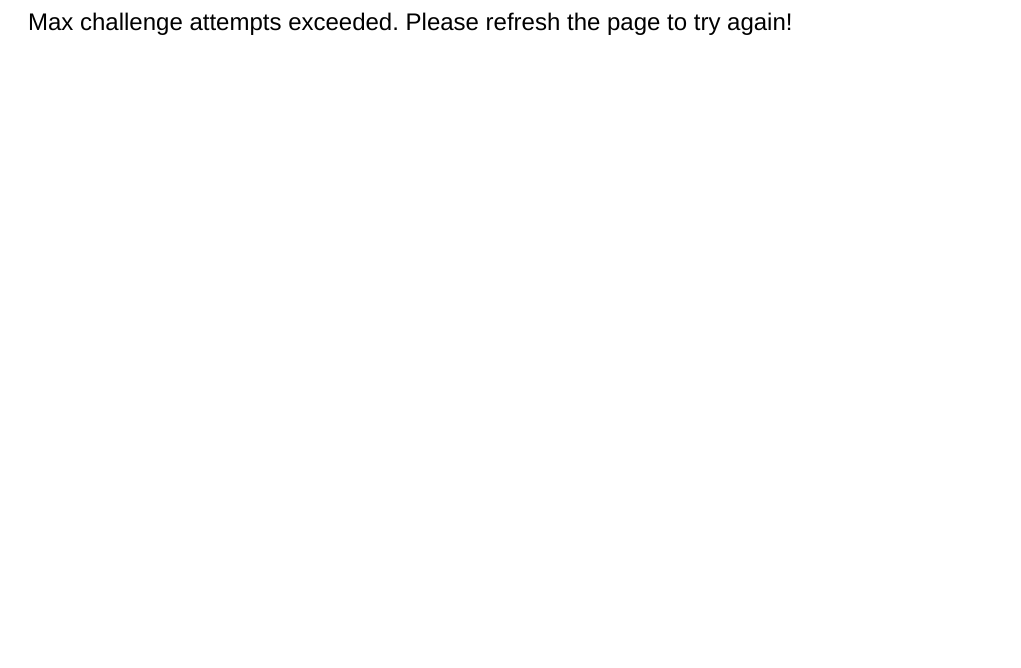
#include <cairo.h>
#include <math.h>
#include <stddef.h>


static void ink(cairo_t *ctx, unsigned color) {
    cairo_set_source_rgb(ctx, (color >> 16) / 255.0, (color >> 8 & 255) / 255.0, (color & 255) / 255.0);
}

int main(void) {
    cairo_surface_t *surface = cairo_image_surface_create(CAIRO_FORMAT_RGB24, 1021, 668);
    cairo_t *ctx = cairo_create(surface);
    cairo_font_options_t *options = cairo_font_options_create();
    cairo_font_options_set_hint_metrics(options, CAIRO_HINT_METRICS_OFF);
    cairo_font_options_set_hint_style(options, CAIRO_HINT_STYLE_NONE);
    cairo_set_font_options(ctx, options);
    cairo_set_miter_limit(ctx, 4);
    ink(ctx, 0xFFFFFF);
    cairo_paint(ctx);
    cairo_select_font_face(ctx, "Liberation Sans", CAIRO_FONT_SLANT_NORMAL, CAIRO_FONT_WEIGHT_NORMAL);
    cairo_set_font_size(ctx, 24);
    ink(ctx, 0x000000);
    cairo_move_to(ctx, 28, 30);
    cairo_show_text(ctx, "Max challenge attempts exceeded. Please refresh the page to try again!");
    cairo_surface_write_to_png(surface, "image.png");
    cairo_font_options_destroy(options);
    cairo_destroy(ctx);
    cairo_surface_destroy(surface);
    return 0;
}
